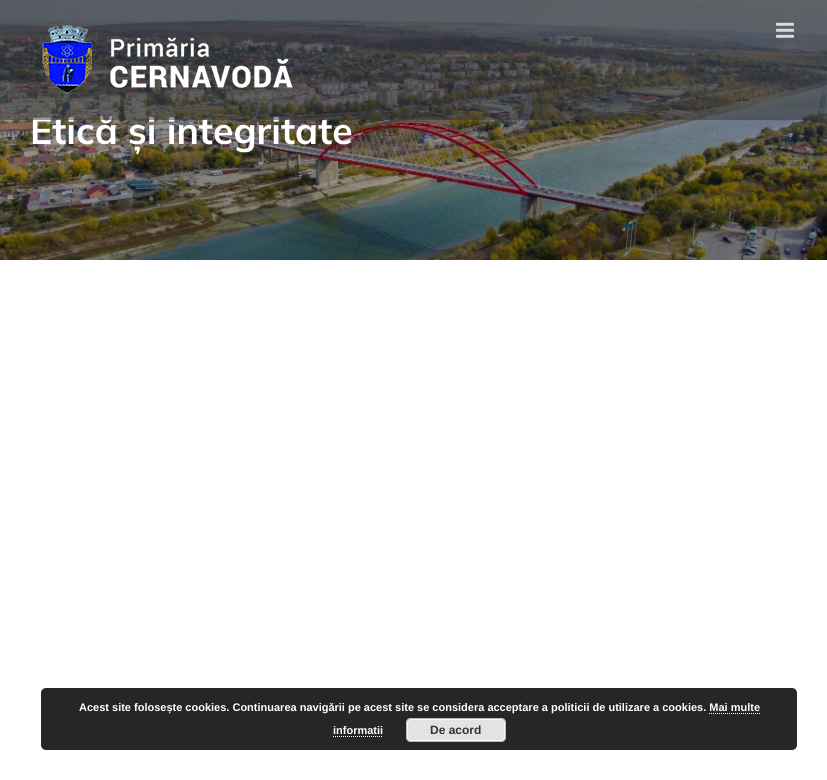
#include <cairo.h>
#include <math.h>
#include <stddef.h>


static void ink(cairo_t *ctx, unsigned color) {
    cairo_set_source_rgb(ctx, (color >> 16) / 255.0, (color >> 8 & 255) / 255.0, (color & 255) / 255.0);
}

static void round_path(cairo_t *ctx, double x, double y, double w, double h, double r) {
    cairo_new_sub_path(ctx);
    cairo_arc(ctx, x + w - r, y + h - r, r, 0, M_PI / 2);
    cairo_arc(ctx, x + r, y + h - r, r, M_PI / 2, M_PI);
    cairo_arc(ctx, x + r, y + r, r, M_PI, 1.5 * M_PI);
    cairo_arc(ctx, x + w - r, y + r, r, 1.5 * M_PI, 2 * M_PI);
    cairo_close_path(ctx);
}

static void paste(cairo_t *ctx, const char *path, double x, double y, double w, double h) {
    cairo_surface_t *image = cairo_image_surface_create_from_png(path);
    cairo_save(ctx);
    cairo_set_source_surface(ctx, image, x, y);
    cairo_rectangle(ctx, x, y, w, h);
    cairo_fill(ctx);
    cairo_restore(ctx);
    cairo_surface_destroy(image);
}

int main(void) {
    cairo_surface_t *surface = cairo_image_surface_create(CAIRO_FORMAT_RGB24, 827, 780);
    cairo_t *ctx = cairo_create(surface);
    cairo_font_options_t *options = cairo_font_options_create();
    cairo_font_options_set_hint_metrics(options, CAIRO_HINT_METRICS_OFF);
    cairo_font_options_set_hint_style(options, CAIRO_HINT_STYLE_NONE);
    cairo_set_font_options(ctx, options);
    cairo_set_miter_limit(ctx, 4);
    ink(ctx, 0xFFFFFF);
    cairo_paint(ctx);
    paste(ctx, "media/3.png", 0, 0, 827, 260);
    cairo_select_font_face(ctx, "Mulish", CAIRO_FONT_SLANT_NORMAL, CAIRO_FONT_WEIGHT_BOLD);
    cairo_set_font_size(ctx, 37.25);
    ink(ctx, 0xFFFFFF);
    cairo_move_to(ctx, 30, 144);
    cairo_show_text(ctx, "Etică și integritate");
    cairo_set_source_rgba(ctx, 0.208, 0.212, 0.216, 0.5);
    cairo_rectangle(ctx, 0, 0, 827, 120);
    cairo_fill(ctx);
    paste(ctx, "media/1.png", 42, 25, 251, 69);
    paste(ctx, "media/2.png", 776, 22, 18, 16);
    ink(ctx, 0x262626);
    round_path(ctx, 41, 688, 756, 62, 5);
    cairo_fill(ctx);
    cairo_select_font_face(ctx, "Liberation Sans", CAIRO_FONT_SLANT_NORMAL, CAIRO_FONT_WEIGHT_BOLD);
    cairo_set_font_size(ctx, 11);
    ink(ctx, 0xFFFFFF);
    cairo_move_to(ctx, 79, 711);
    cairo_show_text(ctx, "Acest site folosește cookies. Continuarea navigării pe acest site se considera acceptare a politicii de utilizare a cookies. Mai multe");
    cairo_move_to(ctx, 333, 734);
    cairo_show_text(ctx, "informatii");
    cairo_new_path(ctx);
    cairo_move_to(ctx, 709, 713.5);
    cairo_line_to(ctx, 760, 713.5);
    cairo_set_line_width(ctx, 1);
    cairo_set_dash(ctx, (double[]){1, 1}, 2, 0);
    cairo_stroke(ctx);
    cairo_new_path(ctx);
    cairo_move_to(ctx, 333, 736.5);
    cairo_line_to(ctx, 383, 736.5);
    cairo_stroke(ctx);
    ink(ctx, 0xE3E3E3);
    round_path(ctx, 406, 718, 100, 24, 5);
    cairo_fill(ctx);
    round_path(ctx, 407.5, 719.5, 97, 21, 3.5);
    ink(ctx, 0xF6F6F6);
    cairo_set_dash(ctx, NULL, 0, 0);
    cairo_stroke(ctx);
    round_path(ctx, 406.5, 718.5, 99, 23, 4.5);
    ink(ctx, 0xBBBBBB);
    cairo_stroke(ctx);
    cairo_set_font_size(ctx, 12);
    ink(ctx, 0x333333);
    cairo_move_to(ctx, 430, 734);
    cairo_show_text(ctx, "De acord");
    cairo_surface_write_to_png(surface, "image.png");
    cairo_font_options_destroy(options);
    cairo_destroy(ctx);
    cairo_surface_destroy(surface);
    return 0;
}
